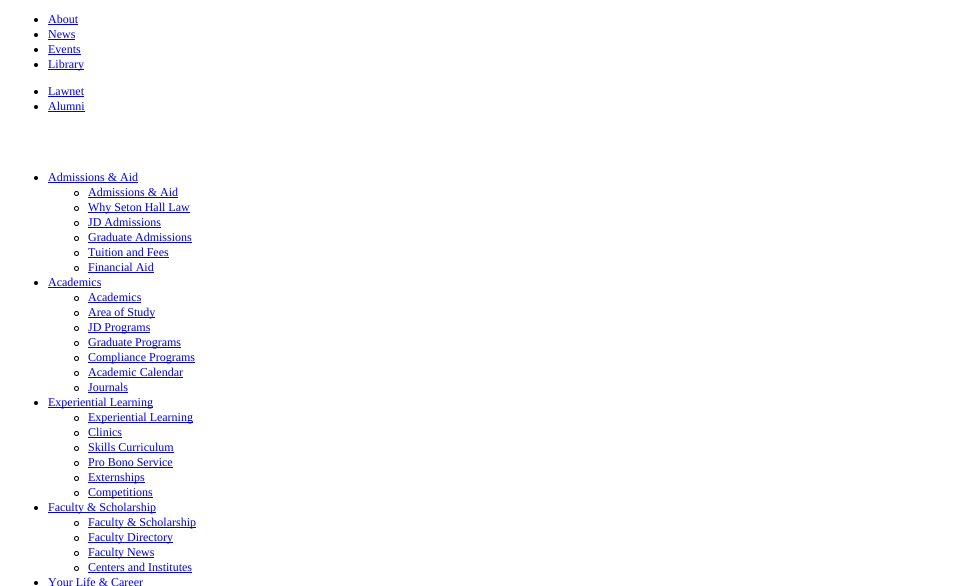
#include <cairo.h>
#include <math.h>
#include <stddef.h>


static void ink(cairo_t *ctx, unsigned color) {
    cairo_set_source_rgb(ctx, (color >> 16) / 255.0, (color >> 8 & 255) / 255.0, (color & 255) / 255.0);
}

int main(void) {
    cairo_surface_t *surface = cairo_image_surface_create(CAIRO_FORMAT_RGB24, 971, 586);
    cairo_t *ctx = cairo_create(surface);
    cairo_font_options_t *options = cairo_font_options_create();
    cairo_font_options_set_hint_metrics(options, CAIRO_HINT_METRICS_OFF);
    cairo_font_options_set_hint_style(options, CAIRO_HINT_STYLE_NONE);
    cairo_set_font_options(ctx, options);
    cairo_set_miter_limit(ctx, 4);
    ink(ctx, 0xFFFFFF);
    cairo_paint(ctx);
    ink(ctx, 0x000000);
    cairo_arc(ctx, 36, 20, 2, 0, 2 * M_PI);
    cairo_fill(ctx);
    cairo_select_font_face(ctx, "Liberation Serif", CAIRO_FONT_SLANT_NORMAL, CAIRO_FONT_WEIGHT_NORMAL);
    cairo_set_font_size(ctx, 12);
    ink(ctx, 0x0000EE);
    cairo_move_to(ctx, 48, 23);
    cairo_show_text(ctx, "About");
    cairo_rectangle(ctx, 48, 24, 30, 1);
    cairo_fill(ctx);
    ink(ctx, 0x000000);
    cairo_arc(ctx, 36, 35, 2, 0, 2 * M_PI);
    cairo_fill(ctx);
    ink(ctx, 0x0000EE);
    cairo_move_to(ctx, 48, 38);
    cairo_show_text(ctx, "News");
    cairo_rectangle(ctx, 48, 39, 27, 1);
    cairo_fill(ctx);
    ink(ctx, 0x000000);
    cairo_arc(ctx, 36, 50, 2, 0, 2 * M_PI);
    cairo_fill(ctx);
    ink(ctx, 0x0000EE);
    cairo_move_to(ctx, 48, 53);
    cairo_show_text(ctx, "Events");
    cairo_rectangle(ctx, 48, 54, 33, 1);
    cairo_fill(ctx);
    ink(ctx, 0x000000);
    cairo_arc(ctx, 36, 65, 2, 0, 2 * M_PI);
    cairo_fill(ctx);
    ink(ctx, 0x0000EE);
    cairo_rectangle(ctx, 48, 69, 36, 1);
    cairo_fill(ctx);
    cairo_move_to(ctx, 48, 68);
    cairo_show_text(ctx, "Library");
    ink(ctx, 0x000000);
    cairo_new_path(ctx);
    cairo_arc(ctx, 36, 92, 2, 0, 2 * M_PI);
    cairo_fill(ctx);
    ink(ctx, 0x0000EE);
    cairo_move_to(ctx, 48, 95);
    cairo_show_text(ctx, "Lawnet");
    cairo_rectangle(ctx, 48, 96, 36, 1);
    cairo_fill(ctx);
    ink(ctx, 0x000000);
    cairo_arc(ctx, 36, 107, 2, 0, 2 * M_PI);
    cairo_fill(ctx);
    ink(ctx, 0x0000EE);
    cairo_move_to(ctx, 48, 110);
    cairo_show_text(ctx, "Alumni");
    cairo_rectangle(ctx, 48, 111, 37, 1);
    cairo_fill(ctx);
    ink(ctx, 0x000000);
    cairo_arc(ctx, 36, 178, 2, 0, 2 * M_PI);
    cairo_fill(ctx);
    ink(ctx, 0x0000EE);
    cairo_move_to(ctx, 48, 181);
    cairo_show_text(ctx, "Admissions & Aid");
    cairo_rectangle(ctx, 48, 182, 90, 1);
    cairo_fill(ctx);
    cairo_arc(ctx, 76.5, 193.5, 2, 0, 2 * M_PI);
    ink(ctx, 0x000000);
    cairo_set_line_width(ctx, 1);
    cairo_stroke(ctx);
    ink(ctx, 0x0000EE);
    cairo_move_to(ctx, 88, 196);
    cairo_show_text(ctx, "Admissions & Aid");
    cairo_rectangle(ctx, 88, 197, 90, 1);
    cairo_fill(ctx);
    cairo_arc(ctx, 76.5, 208.5, 2, 0, 2 * M_PI);
    ink(ctx, 0x000000);
    cairo_stroke(ctx);
    ink(ctx, 0x0000EE);
    cairo_rectangle(ctx, 88, 212, 102, 1);
    cairo_fill(ctx);
    cairo_move_to(ctx, 88, 211);
    cairo_show_text(ctx, "Why Seton Hall Law");
    cairo_new_path(ctx);
    cairo_arc(ctx, 76.5, 223.5, 2, 0, 2 * M_PI);
    ink(ctx, 0x000000);
    cairo_stroke(ctx);
    ink(ctx, 0x0000EE);
    cairo_move_to(ctx, 88, 226);
    cairo_show_text(ctx, "JD Admissions");
    cairo_rectangle(ctx, 88, 227, 73, 1);
    cairo_fill(ctx);
    cairo_arc(ctx, 76.5, 238.5, 2, 0, 2 * M_PI);
    ink(ctx, 0x000000);
    cairo_stroke(ctx);
    ink(ctx, 0x0000EE);
    cairo_move_to(ctx, 88, 241);
    cairo_show_text(ctx, "Graduate Admissions");
    cairo_rectangle(ctx, 88, 242, 104, 1);
    cairo_fill(ctx);
    cairo_arc(ctx, 76.5, 253.5, 2, 0, 2 * M_PI);
    ink(ctx, 0x000000);
    cairo_stroke(ctx);
    ink(ctx, 0x0000EE);
    cairo_move_to(ctx, 88, 256);
    cairo_show_text(ctx, "Tuition and Fees");
    cairo_rectangle(ctx, 88, 257, 81, 1);
    cairo_fill(ctx);
    cairo_arc(ctx, 76.5, 268.5, 2, 0, 2 * M_PI);
    ink(ctx, 0x000000);
    cairo_stroke(ctx);
    ink(ctx, 0x0000EE);
    cairo_move_to(ctx, 88, 271);
    cairo_show_text(ctx, "Financial Aid");
    cairo_rectangle(ctx, 88, 272, 66, 1);
    cairo_fill(ctx);
    ink(ctx, 0x000000);
    cairo_arc(ctx, 36, 283, 2, 0, 2 * M_PI);
    cairo_fill(ctx);
    ink(ctx, 0x0000EE);
    cairo_move_to(ctx, 48, 286);
    cairo_show_text(ctx, "Academics");
    cairo_rectangle(ctx, 48, 287, 53, 1);
    cairo_fill(ctx);
    cairo_arc(ctx, 76.5, 298.5, 2, 0, 2 * M_PI);
    ink(ctx, 0x000000);
    cairo_stroke(ctx);
    ink(ctx, 0x0000EE);
    cairo_move_to(ctx, 88, 301);
    cairo_show_text(ctx, "Academics");
    cairo_rectangle(ctx, 88, 302, 53, 1);
    cairo_fill(ctx);
    cairo_arc(ctx, 76.5, 313.5, 2, 0, 2 * M_PI);
    ink(ctx, 0x000000);
    cairo_stroke(ctx);
    ink(ctx, 0x0000EE);
    cairo_rectangle(ctx, 88, 317, 67, 1);
    cairo_fill(ctx);
    cairo_move_to(ctx, 88, 316);
    cairo_show_text(ctx, "Area of Study");
    cairo_new_path(ctx);
    cairo_arc(ctx, 76.5, 328.5, 2, 0, 2 * M_PI);
    ink(ctx, 0x000000);
    cairo_stroke(ctx);
    ink(ctx, 0x0000EE);
    cairo_rectangle(ctx, 88, 332, 62, 1);
    cairo_fill(ctx);
    cairo_move_to(ctx, 88, 331);
    cairo_show_text(ctx, "JD Programs");
    cairo_new_path(ctx);
    cairo_arc(ctx, 76.5, 343.5, 2, 0, 2 * M_PI);
    ink(ctx, 0x000000);
    cairo_stroke(ctx);
    ink(ctx, 0x0000EE);
    cairo_rectangle(ctx, 88, 347, 93, 1);
    cairo_fill(ctx);
    cairo_move_to(ctx, 88, 346);
    cairo_show_text(ctx, "Graduate Programs");
    cairo_new_path(ctx);
    cairo_arc(ctx, 76.5, 358.5, 2, 0, 2 * M_PI);
    ink(ctx, 0x000000);
    cairo_stroke(ctx);
    ink(ctx, 0x0000EE);
    cairo_rectangle(ctx, 88, 362, 107, 1);
    cairo_fill(ctx);
    cairo_move_to(ctx, 88, 361);
    cairo_show_text(ctx, "Compliance Programs");
    cairo_new_path(ctx);
    cairo_arc(ctx, 76.5, 373.5, 2, 0, 2 * M_PI);
    ink(ctx, 0x000000);
    cairo_stroke(ctx);
    ink(ctx, 0x0000EE);
    cairo_move_to(ctx, 88, 376);
    cairo_show_text(ctx, "Academic Calendar");
    cairo_rectangle(ctx, 88, 377, 95, 1);
    cairo_fill(ctx);
    cairo_arc(ctx, 76.5, 388.5, 2, 0, 2 * M_PI);
    ink(ctx, 0x000000);
    cairo_stroke(ctx);
    ink(ctx, 0x0000EE);
    cairo_move_to(ctx, 88, 391);
    cairo_show_text(ctx, "Journals");
    cairo_rectangle(ctx, 88, 392, 40, 1);
    cairo_fill(ctx);
    ink(ctx, 0x000000);
    cairo_arc(ctx, 36, 403, 2, 0, 2 * M_PI);
    cairo_fill(ctx);
    ink(ctx, 0x0000EE);
    cairo_rectangle(ctx, 48, 407, 105, 1);
    cairo_fill(ctx);
    cairo_move_to(ctx, 48, 406);
    cairo_show_text(ctx, "Experiential Learning");
    cairo_new_path(ctx);
    cairo_arc(ctx, 76.5, 418.5, 2, 0, 2 * M_PI);
    ink(ctx, 0x000000);
    cairo_stroke(ctx);
    ink(ctx, 0x0000EE);
    cairo_rectangle(ctx, 88, 422, 105, 1);
    cairo_fill(ctx);
    cairo_move_to(ctx, 88, 421);
    cairo_show_text(ctx, "Experiential Learning");
    cairo_new_path(ctx);
    cairo_arc(ctx, 76.5, 433.5, 2, 0, 2 * M_PI);
    ink(ctx, 0x000000);
    cairo_stroke(ctx);
    ink(ctx, 0x0000EE);
    cairo_move_to(ctx, 88, 436);
    cairo_show_text(ctx, "Clinics");
    cairo_rectangle(ctx, 88, 437, 34, 1);
    cairo_fill(ctx);
    cairo_arc(ctx, 76.5, 448.5, 2, 0, 2 * M_PI);
    ink(ctx, 0x000000);
    cairo_stroke(ctx);
    ink(ctx, 0x0000EE);
    cairo_move_to(ctx, 88, 451);
    cairo_show_text(ctx, "Skills Curriculum");
    cairo_rectangle(ctx, 88, 452, 86, 1);
    cairo_fill(ctx);
    cairo_arc(ctx, 76.5, 463.5, 2, 0, 2 * M_PI);
    ink(ctx, 0x000000);
    cairo_stroke(ctx);
    ink(ctx, 0x0000EE);
    cairo_move_to(ctx, 88, 466);
    cairo_show_text(ctx, "Pro Bono Service");
    cairo_rectangle(ctx, 88, 467, 85, 1);
    cairo_fill(ctx);
    cairo_arc(ctx, 76.5, 478.5, 2, 0, 2 * M_PI);
    ink(ctx, 0x000000);
    cairo_stroke(ctx);
    ink(ctx, 0x0000EE);
    cairo_rectangle(ctx, 88, 482, 57, 1);
    cairo_fill(ctx);
    cairo_move_to(ctx, 88, 481);
    cairo_show_text(ctx, "Externships");
    cairo_new_path(ctx);
    cairo_arc(ctx, 76.5, 493.5, 2, 0, 2 * M_PI);
    ink(ctx, 0x000000);
    cairo_stroke(ctx);
    ink(ctx, 0x0000EE);
    cairo_rectangle(ctx, 88, 497, 65, 1);
    cairo_fill(ctx);
    cairo_move_to(ctx, 88, 496);
    cairo_show_text(ctx, "Competitions");
    ink(ctx, 0x000000);
    cairo_new_path(ctx);
    cairo_arc(ctx, 36, 508, 2, 0, 2 * M_PI);
    cairo_fill(ctx);
    ink(ctx, 0x0000EE);
    cairo_rectangle(ctx, 48, 512, 108, 1);
    cairo_fill(ctx);
    cairo_move_to(ctx, 48, 511);
    cairo_show_text(ctx, "Faculty & Scholarship");
    cairo_new_path(ctx);
    cairo_arc(ctx, 76.5, 523.5, 2, 0, 2 * M_PI);
    ink(ctx, 0x000000);
    cairo_stroke(ctx);
    ink(ctx, 0x0000EE);
    cairo_rectangle(ctx, 88, 527, 108, 1);
    cairo_fill(ctx);
    cairo_move_to(ctx, 88, 526);
    cairo_show_text(ctx, "Faculty & Scholarship");
    cairo_new_path(ctx);
    cairo_arc(ctx, 76.5, 538.5, 2, 0, 2 * M_PI);
    ink(ctx, 0x000000);
    cairo_stroke(ctx);
    ink(ctx, 0x0000EE);
    cairo_rectangle(ctx, 88, 542, 85, 1);
    cairo_fill(ctx);
    cairo_move_to(ctx, 88, 541);
    cairo_show_text(ctx, "Faculty Directory");
    cairo_new_path(ctx);
    cairo_arc(ctx, 76.5, 553.5, 2, 0, 2 * M_PI);
    ink(ctx, 0x000000);
    cairo_stroke(ctx);
    ink(ctx, 0x0000EE);
    cairo_rectangle(ctx, 88, 557, 66, 1);
    cairo_fill(ctx);
    cairo_move_to(ctx, 88, 556);
    cairo_show_text(ctx, "Faculty News");
    cairo_new_path(ctx);
    cairo_arc(ctx, 76.5, 568.5, 2, 0, 2 * M_PI);
    ink(ctx, 0x000000);
    cairo_stroke(ctx);
    ink(ctx, 0x0000EE);
    cairo_move_to(ctx, 88, 571);
    cairo_show_text(ctx, "Centers and Institutes");
    cairo_rectangle(ctx, 88, 572, 104, 1);
    cairo_fill(ctx);
    ink(ctx, 0x000000);
    cairo_arc(ctx, 36, 583, 2, 0, 2 * M_PI);
    cairo_fill(ctx);
    ink(ctx, 0x0000EE);
    cairo_move_to(ctx, 48, 586);
    cairo_show_text(ctx, "Your Life & Career");
    cairo_surface_write_to_png(surface, "image.png");
    cairo_font_options_destroy(options);
    cairo_destroy(ctx);
    cairo_surface_destroy(surface);
    return 0;
}
